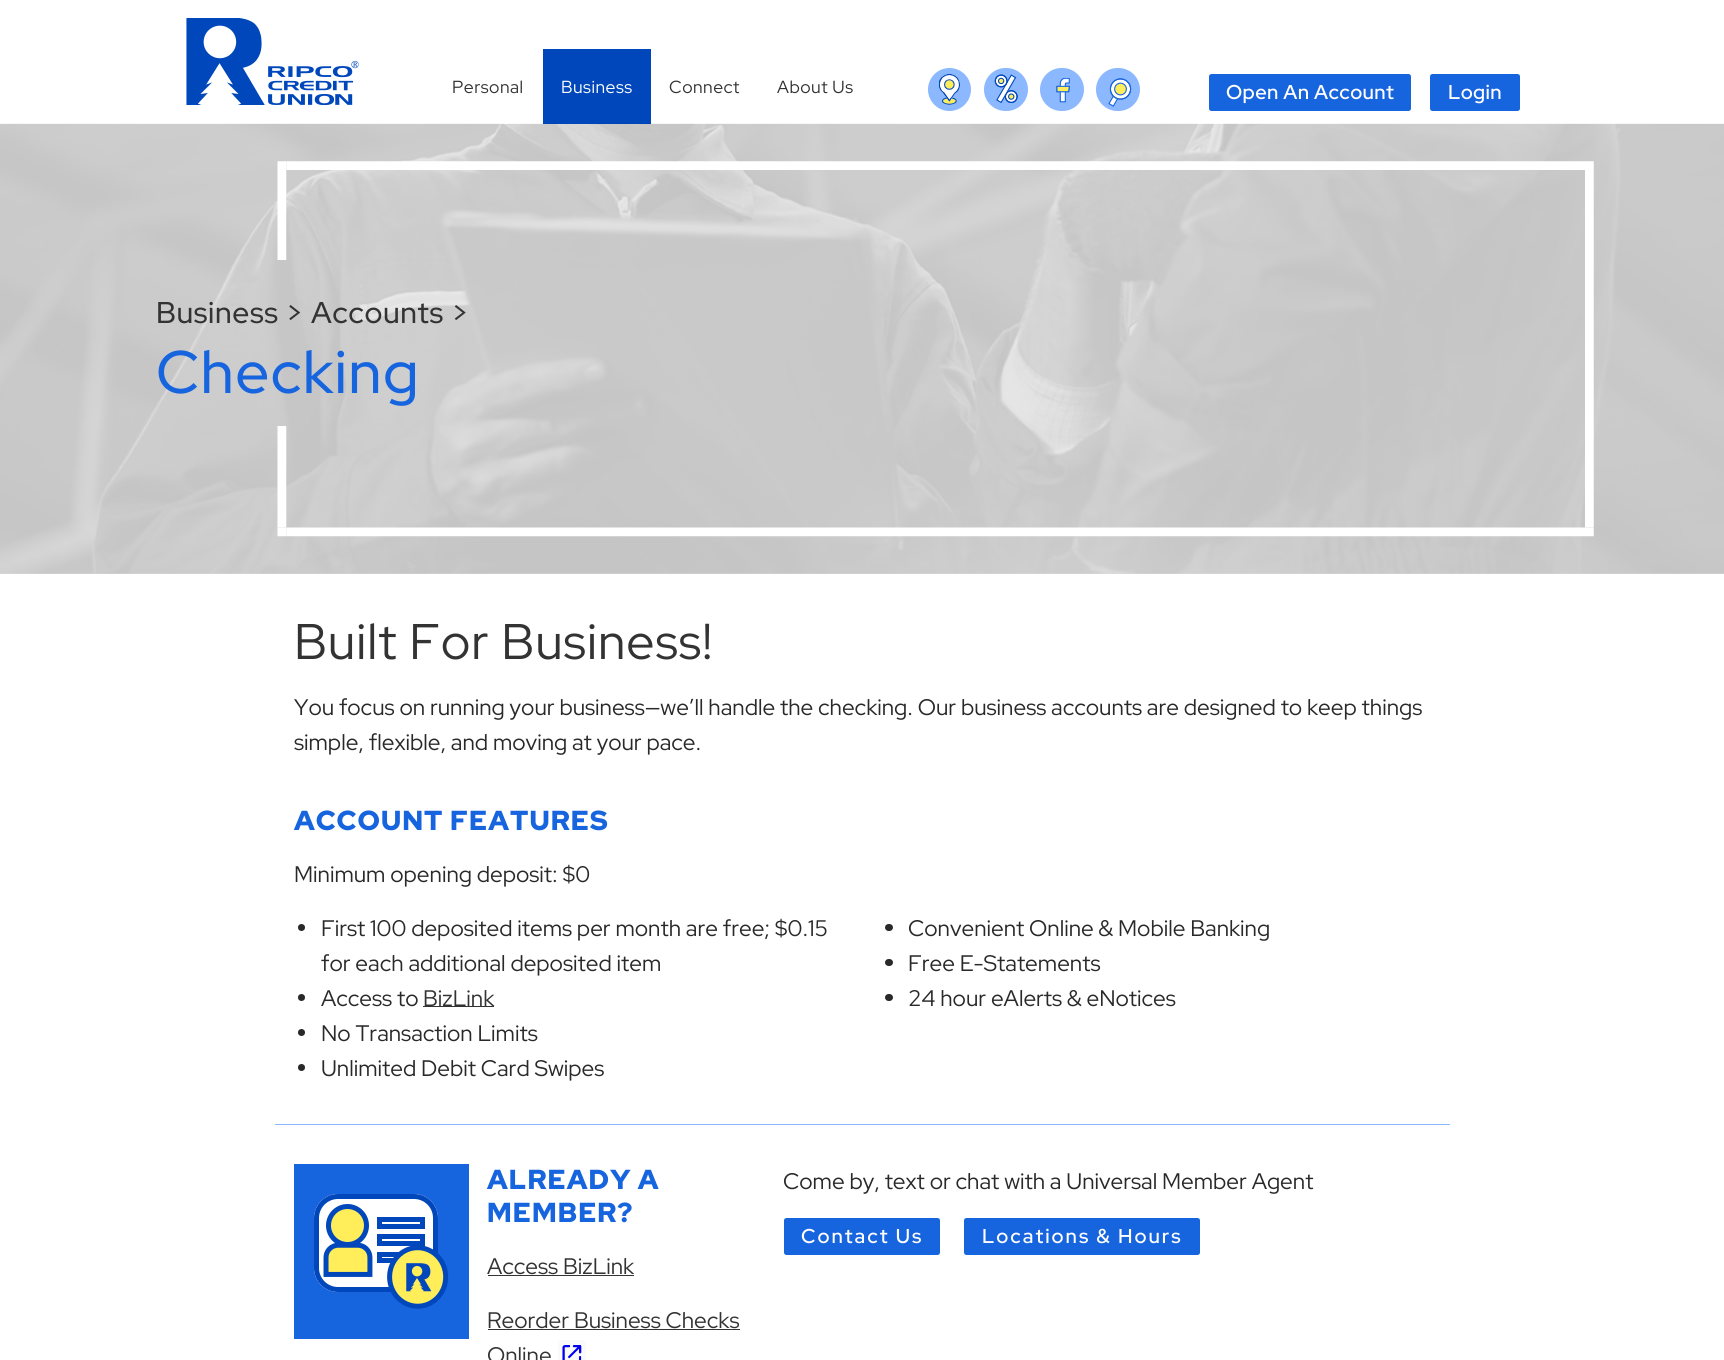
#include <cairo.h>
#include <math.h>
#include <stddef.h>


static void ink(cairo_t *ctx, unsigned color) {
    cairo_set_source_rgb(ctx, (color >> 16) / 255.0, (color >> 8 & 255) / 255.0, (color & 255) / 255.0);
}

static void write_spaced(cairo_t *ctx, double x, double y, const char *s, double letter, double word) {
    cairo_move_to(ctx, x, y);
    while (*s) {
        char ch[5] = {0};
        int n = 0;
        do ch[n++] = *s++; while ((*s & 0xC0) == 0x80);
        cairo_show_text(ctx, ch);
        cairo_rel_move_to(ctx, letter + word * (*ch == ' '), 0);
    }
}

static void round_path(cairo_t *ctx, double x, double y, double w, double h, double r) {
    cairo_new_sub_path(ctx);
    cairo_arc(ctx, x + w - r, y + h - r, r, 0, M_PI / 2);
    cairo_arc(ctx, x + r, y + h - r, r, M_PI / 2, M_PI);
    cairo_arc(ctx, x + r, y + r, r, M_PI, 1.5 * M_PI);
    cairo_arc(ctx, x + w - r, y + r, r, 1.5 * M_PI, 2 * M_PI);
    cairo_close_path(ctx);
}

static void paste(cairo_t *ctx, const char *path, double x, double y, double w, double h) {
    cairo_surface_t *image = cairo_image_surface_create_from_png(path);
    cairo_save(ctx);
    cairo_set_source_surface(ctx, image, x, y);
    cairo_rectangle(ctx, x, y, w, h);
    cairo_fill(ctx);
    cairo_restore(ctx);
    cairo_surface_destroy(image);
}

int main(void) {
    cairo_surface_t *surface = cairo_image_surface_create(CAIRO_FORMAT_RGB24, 1724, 1360);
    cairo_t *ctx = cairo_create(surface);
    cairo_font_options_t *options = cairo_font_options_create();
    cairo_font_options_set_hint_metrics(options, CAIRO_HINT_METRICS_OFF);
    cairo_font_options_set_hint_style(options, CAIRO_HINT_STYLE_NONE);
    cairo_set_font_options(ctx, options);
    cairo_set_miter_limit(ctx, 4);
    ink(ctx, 0xFFFFFF);
    cairo_paint(ctx);
    paste(ctx, "media/1.png", 186, 18, 173, 87);
    cairo_select_font_face(ctx, "Red Hat Display", CAIRO_FONT_SLANT_NORMAL, CAIRO_FONT_WEIGHT_NORMAL);
    cairo_set_font_size(ctx, 17.5);
    ink(ctx, 0x333333);
    write_spaced(ctx, 452, 93, "Personal", 0.5, 0);
    ink(ctx, 0x0047BB);
    cairo_rectangle(ctx, 543, 49, 108, 75);
    cairo_fill(ctx);
    ink(ctx, 0xFFFFFF);
    write_spaced(ctx, 561, 93, "Business", 0.5, 0);
    ink(ctx, 0x333333);
    write_spaced(ctx, 669, 93, "Connect", 0.5, 0);
    write_spaced(ctx, 777, 93, "About Us", 0.5, 0);
    ink(ctx, 0x8BB8FF);
    cairo_new_path(ctx);
    cairo_arc(ctx, 949.5, 89.5, 21.5, 0, 2 * M_PI);
    cairo_fill(ctx);
    paste(ctx, "media/2.png", 939, 74, 21, 31);
    round_path(ctx, 984, 68, 44, 43, 21.5);
    cairo_fill(ctx);
    paste(ctx, "media/3.png", 994, 74, 24, 30);
    round_path(ctx, 1040, 68, 44, 43, 21.5);
    cairo_fill(ctx);
    paste(ctx, "media/4.png", 1056, 78, 14, 25);
    round_path(ctx, 1096, 68, 44, 43, 21.5);
    cairo_fill(ctx);
    paste(ctx, "media/5.png", 1108, 78, 24, 29);
    ink(ctx, 0x1764DF);
    round_path(ctx, 1210.5, 75.5, 199, 34, 1);
    cairo_fill_preserve(ctx);
    cairo_set_line_width(ctx, 3);
    cairo_stroke(ctx);
    cairo_select_font_face(ctx, "Red Hat Display SemiBold", CAIRO_FONT_SLANT_NORMAL, CAIRO_FONT_WEIGHT_NORMAL);
    cairo_set_font_size(ctx, 20);
    ink(ctx, 0xFFFFFF);
    write_spaced(ctx, 1226, 99, "Open An Account", 0.4, 0);
    ink(ctx, 0x1764DF);
    round_path(ctx, 1431.5, 75.5, 87, 34, 1);
    cairo_fill_preserve(ctx);
    cairo_stroke(ctx);
    ink(ctx, 0xFFFFFF);
    write_spaced(ctx, 1448, 99, "Login", 0.4, 0);
    ink(ctx, 0xE7E7E7);
    cairo_rectangle(ctx, 0, 124, 1724, 450);
    cairo_fill(ctx);
    paste(ctx, "media/6.png", 0, 123, 1724, 451);
    paste(ctx, "media/7.png", 277, 161, 1317, 376);
    cairo_select_font_face(ctx, "Red Hat Display Medium", CAIRO_FONT_SLANT_NORMAL, CAIRO_FONT_WEIGHT_NORMAL);
    cairo_set_font_size(ctx, 30);
    ink(ctx, 0x333333);
    write_spaced(ctx, 156, 323, "Business > Accounts >", 0.6, 0);
    cairo_set_font_size(ctx, 60);
    ink(ctx, 0x1764DF);
    write_spaced(ctx, 156, 393, "Checking", 1.25, 0);
    cairo_select_font_face(ctx, "Red Hat Display", CAIRO_FONT_SLANT_NORMAL, CAIRO_FONT_WEIGHT_NORMAL);
    cairo_set_font_size(ctx, 50);
    ink(ctx, 0x333333);
    write_spaced(ctx, 294, 659, "Built For Business!", 1, 0);
    cairo_set_font_size(ctx, 22.5);
    ink(ctx, 0x292929);
    cairo_move_to(ctx, 294, 715);
    cairo_show_text(ctx, "You focus on running your business—we’ll handle the checking. Our business accounts are designed to keep things");
    cairo_move_to(ctx, 294, 750);
    cairo_show_text(ctx, "simple, flexible, and moving at your pace.");
    cairo_select_font_face(ctx, "Red Hat Display Black", CAIRO_FONT_SLANT_NORMAL, CAIRO_FONT_WEIGHT_NORMAL);
    cairo_set_font_size(ctx, 27.5);
    ink(ctx, 0x1764DF);
    write_spaced(ctx, 294, 830, "ACCOUNT FEATURES", 1.1, 0);
    cairo_select_font_face(ctx, "Red Hat Display", CAIRO_FONT_SLANT_NORMAL, CAIRO_FONT_WEIGHT_NORMAL);
    cairo_set_font_size(ctx, 22.5);
    ink(ctx, 0x292929);
    cairo_move_to(ctx, 294, 882);
    cairo_show_text(ctx, "Minimum opening deposit: $0");
    cairo_new_path(ctx);
    cairo_arc(ctx, 301.5, 927.5, 3.5, 0, 2 * M_PI);
    cairo_fill(ctx);
    cairo_move_to(ctx, 321, 936);
    cairo_show_text(ctx, "First 100 deposited items per month are free; $0.15");
    cairo_move_to(ctx, 321, 971);
    cairo_show_text(ctx, "for each additional deposited item");
    cairo_new_path(ctx);
    cairo_arc(ctx, 301.5, 997.5, 3.5, 0, 2 * M_PI);
    cairo_fill(ctx);
    cairo_move_to(ctx, 321, 1006);
    cairo_show_text(ctx, "Access to");
    ink(ctx, 0x333333);
    cairo_move_to(ctx, 423, 1006);
    cairo_show_text(ctx, "BizLink");
    cairo_rectangle(ctx, 423, 1006, 71, 1);
    cairo_fill(ctx);
    ink(ctx, 0x292929);
    cairo_arc(ctx, 301.5, 1032.5, 3.5, 0, 2 * M_PI);
    cairo_fill(ctx);
    cairo_move_to(ctx, 321, 1041);
    cairo_show_text(ctx, "No Transaction Limits");
    cairo_new_path(ctx);
    cairo_arc(ctx, 301.5, 1067.5, 3.5, 0, 2 * M_PI);
    cairo_fill(ctx);
    cairo_move_to(ctx, 321, 1076);
    cairo_show_text(ctx, "Unlimited Debit Card Swipes");
    round_path(ctx, 885, 924, 8, 7, 3.5);
    cairo_fill(ctx);
    cairo_move_to(ctx, 908, 936);
    cairo_show_text(ctx, "Convenient Online & Mobile Banking");
    round_path(ctx, 885, 959, 8, 7, 3.5);
    cairo_fill(ctx);
    cairo_move_to(ctx, 908, 971);
    cairo_show_text(ctx, "Free E-Statements");
    round_path(ctx, 885, 994, 8, 7, 3.5);
    cairo_fill(ctx);
    cairo_move_to(ctx, 908, 1006);
    cairo_show_text(ctx, "24 hour eAlerts & eNotices");
    ink(ctx, 0x8BB8FF);
    cairo_rectangle(ctx, 275, 1124, 1175, 1);
    cairo_fill(ctx);
    paste(ctx, "media/8.png", 294, 1164, 175, 175);
    cairo_select_font_face(ctx, "Red Hat Display Black", CAIRO_FONT_SLANT_NORMAL, CAIRO_FONT_WEIGHT_NORMAL);
    cairo_set_font_size(ctx, 27.5);
    ink(ctx, 0x1764DF);
    write_spaced(ctx, 487, 1189, "ALREADY A", 1.1, 0);
    write_spaced(ctx, 487, 1222, "MEMBER?", 1.1, 0);
    cairo_select_font_face(ctx, "Red Hat Display", CAIRO_FONT_SLANT_NORMAL, CAIRO_FONT_WEIGHT_NORMAL);
    cairo_set_font_size(ctx, 22.5);
    ink(ctx, 0x333333);
    cairo_move_to(ctx, 487, 1274);
    cairo_show_text(ctx, "Access BizLink");
    cairo_rectangle(ctx, 488, 1275, 146, 1);
    cairo_fill(ctx);
    cairo_move_to(ctx, 487, 1328);
    cairo_show_text(ctx, "Reorder Business Checks");
    cairo_rectangle(ctx, 488, 1329, 252, 1);
    cairo_fill(ctx);
    cairo_move_to(ctx, 487, 1363);
    cairo_show_text(ctx, "Online");
    paste(ctx, "media/9.png", 558, 1340, 28, 20);
    ink(ctx, 0x292929);
    cairo_move_to(ctx, 783, 1189);
    cairo_show_text(ctx, "Come by, text or chat with a Universal Member Agent");
    ink(ctx, 0x1764DF);
    round_path(ctx, 785.5, 1219.5, 153, 34, 1);
    cairo_fill_preserve(ctx);
    cairo_stroke(ctx);
    cairo_select_font_face(ctx, "Red Hat Display SemiBold", CAIRO_FONT_SLANT_NORMAL, CAIRO_FONT_WEIGHT_NORMAL);
    cairo_set_font_size(ctx, 20);
    ink(ctx, 0xFFFFFF);
    write_spaced(ctx, 801, 1243, "Contact Us", 2, 0);
    ink(ctx, 0x1764DF);
    round_path(ctx, 965.5, 1219.5, 233, 34, 1);
    cairo_fill_preserve(ctx);
    cairo_stroke(ctx);
    ink(ctx, 0xFFFFFF);
    write_spaced(ctx, 982, 1243, "Locations & Hours", 2, 0);
    cairo_surface_write_to_png(surface, "image.png");
    cairo_font_options_destroy(options);
    cairo_destroy(ctx);
    cairo_surface_destroy(surface);
    return 0;
}
